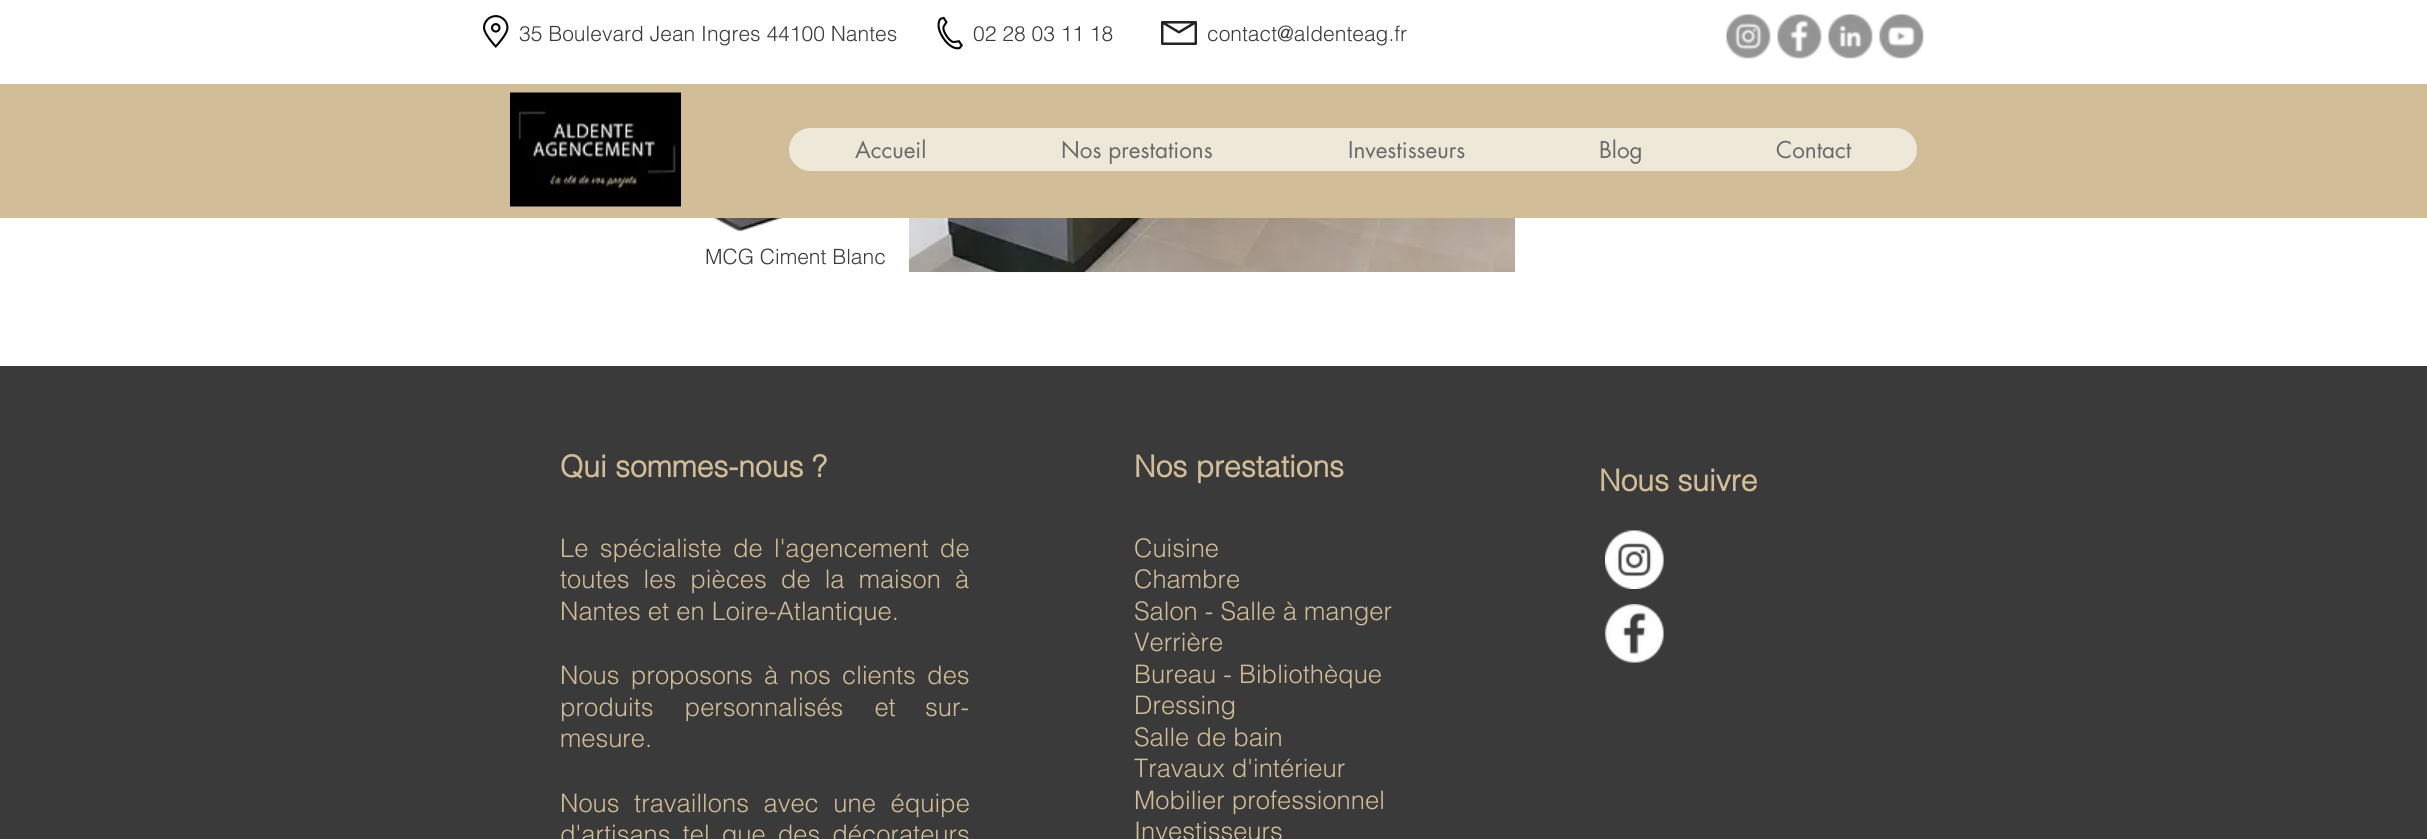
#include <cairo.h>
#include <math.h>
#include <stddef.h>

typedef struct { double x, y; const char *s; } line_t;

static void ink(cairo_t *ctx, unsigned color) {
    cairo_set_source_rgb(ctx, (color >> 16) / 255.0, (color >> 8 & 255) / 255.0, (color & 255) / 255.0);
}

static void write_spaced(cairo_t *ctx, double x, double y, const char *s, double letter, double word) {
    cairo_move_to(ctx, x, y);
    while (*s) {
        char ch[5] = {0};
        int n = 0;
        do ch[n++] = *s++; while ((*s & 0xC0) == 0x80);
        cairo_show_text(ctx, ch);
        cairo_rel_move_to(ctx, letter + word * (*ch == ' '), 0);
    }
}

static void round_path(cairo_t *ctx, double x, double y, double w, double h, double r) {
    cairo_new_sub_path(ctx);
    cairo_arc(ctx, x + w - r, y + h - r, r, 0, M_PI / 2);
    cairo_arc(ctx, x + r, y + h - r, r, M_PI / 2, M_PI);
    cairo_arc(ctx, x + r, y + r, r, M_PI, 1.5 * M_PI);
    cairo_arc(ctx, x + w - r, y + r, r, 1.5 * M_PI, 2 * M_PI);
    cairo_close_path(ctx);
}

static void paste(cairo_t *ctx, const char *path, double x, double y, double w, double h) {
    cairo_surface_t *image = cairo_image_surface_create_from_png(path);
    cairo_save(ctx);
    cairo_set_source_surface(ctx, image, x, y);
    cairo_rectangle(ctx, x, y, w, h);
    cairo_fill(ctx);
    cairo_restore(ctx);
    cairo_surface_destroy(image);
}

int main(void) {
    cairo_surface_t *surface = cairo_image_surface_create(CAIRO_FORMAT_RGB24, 2427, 839);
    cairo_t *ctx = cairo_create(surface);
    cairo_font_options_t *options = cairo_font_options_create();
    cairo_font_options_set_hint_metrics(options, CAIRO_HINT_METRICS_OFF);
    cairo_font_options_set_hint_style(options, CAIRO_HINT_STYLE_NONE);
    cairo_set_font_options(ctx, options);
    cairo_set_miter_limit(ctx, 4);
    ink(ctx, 0xFFFFFF);
    cairo_paint(ctx);
    paste(ctx, "media/1.png", 483, 15, 26, 33);
    paste(ctx, "media/2.png", 937, 16, 26, 34);
    paste(ctx, "media/3.png", 1161, 21, 36, 24);
    paste(ctx, "media/4.png", 1726, 14, 45, 45);
    paste(ctx, "media/5.png", 1777, 14, 45, 45);
    paste(ctx, "media/6.png", 1828, 14, 45, 45);
    paste(ctx, "media/7.png", 1879, 14, 45, 45);
    cairo_select_font_face(ctx, "helvetica Light", CAIRO_FONT_SLANT_NORMAL, CAIRO_FONT_WEIGHT_NORMAL);
    cairo_set_font_size(ctx, 21);
    ink(ctx, 0x3B3A3A);
    cairo_move_to(ctx, 519, 41);
    cairo_show_text(ctx, "35 Boulevard Jean Ingres 44100 Nantes             02 28 03 11 18");
    cairo_move_to(ctx, 1207, 41);
    cairo_show_text(ctx, "contact@aldenteag.fr");
    ink(ctx, 0xD1BD97);
    cairo_rectangle(ctx, 0, 84, 2427, 134);
    cairo_fill(ctx);
    paste(ctx, "media/8.png", 510, 92, 171, 115);
    ink(ctx, 0xEEE8D8);
    round_path(ctx, 789, 128, 1128, 43, 21.5);
    cairo_fill(ctx);
    cairo_select_font_face(ctx, "futura", CAIRO_FONT_SLANT_NORMAL, CAIRO_FONT_WEIGHT_NORMAL);
    cairo_set_font_size(ctx, 22.5);
    ink(ctx, 0x696969);
    {
        static const line_t items[] = {
            {855, 158, "Accueil"},
            {1061, 158, "Nos prestations"},
            {1348, 158, "Investisseurs"},
            {1599, 158, "Blog"},
            {1776, 158, "Contact"},
        };
        for (size_t i = 0; i < sizeof items / sizeof *items; i++) {
            cairo_move_to(ctx, items[i].x, items[i].y);
            cairo_show_text(ctx, items[i].s);
        }
    }
    paste(ctx, "media/9.png", 712, 218, 72, 14);
    paste(ctx, "media/10.png", 909, 218, 606, 55);
    cairo_select_font_face(ctx, "helvetica Light", CAIRO_FONT_SLANT_NORMAL, CAIRO_FONT_WEIGHT_NORMAL);
    cairo_set_font_size(ctx, 21);
    ink(ctx, 0x3B3A3A);
    cairo_move_to(ctx, 705, 264);
    cairo_show_text(ctx, "MCG Ciment Blanc");
    cairo_rectangle(ctx, 0, 366, 2427, 473);
    cairo_fill(ctx);
    cairo_select_font_face(ctx, "helvetica", CAIRO_FONT_SLANT_NORMAL, CAIRO_FONT_WEIGHT_BOLD);
    cairo_set_font_size(ctx, 30);
    ink(ctx, 0xD1BD97);
    {
        static const line_t items[] = {
            {560, 477, "Qui sommes-nous ?"},
            {1134, 477, "Nos prestations"},
            {1599, 491, "Nous suivre"},
        };
        for (size_t i = 0; i < sizeof items / sizeof *items; i++) {
            cairo_move_to(ctx, items[i].x, items[i].y);
            cairo_show_text(ctx, items[i].s);
        }
    }
    cairo_select_font_face(ctx, "helvetica Light", CAIRO_FONT_SLANT_NORMAL, CAIRO_FONT_WEIGHT_NORMAL);
    cairo_set_font_size(ctx, 25.5);
    write_spaced(ctx, 560, 557, "Le spécialiste de l'agencement de", 0, 4.25);
    write_spaced(ctx, 560, 588, "toutes les pièces de la maison à", 0, 7);
    cairo_move_to(ctx, 560, 620);
    cairo_show_text(ctx, "Nantes et en Loire-Atlantique.");
    write_spaced(ctx, 560, 684, "Nous proposons à nos clients des", 0, 4.25);
    write_spaced(ctx, 560, 716, "produits personnalisés et", 0, 24);
    cairo_move_to(ctx, 925, 716);
    cairo_show_text(ctx, "sur-");
    cairo_move_to(ctx, 560, 747);
    cairo_show_text(ctx, "mesure.");
    write_spaced(ctx, 560, 812, "Nous travaillons avec une équipe", 0, 7.5);
    write_spaced(ctx, 560, 843, "d'artisans tel que des décorateurs", 0, 5);
    {
        static const line_t items[] = {
            {1134, 557, "Cuisine"},
            {1134, 588, "Chambre"},
            {1134, 620, "Salon - Salle à manger"},
            {1134, 651, "Verrière"},
            {1134, 683, "Bureau - Bibliothèque"},
            {1134, 714, "Dressing"},
            {1134, 746, "Salle de bain"},
            {1134, 777, "Travaux d'intérieur"},
            {1134, 809, "Mobilier professionnel"},
            {1134, 840, "Investisseurs"},
        };
        for (size_t i = 0; i < sizeof items / sizeof *items; i++) {
            cairo_move_to(ctx, items[i].x, items[i].y);
            cairo_show_text(ctx, items[i].s);
        }
    }
    paste(ctx, "media/11.png", 1605, 530, 59, 59);
    paste(ctx, "media/12.png", 1605, 604, 59, 59);
    cairo_surface_write_to_png(surface, "image.png");
    cairo_font_options_destroy(options);
    cairo_destroy(ctx);
    cairo_surface_destroy(surface);
    return 0;
}
